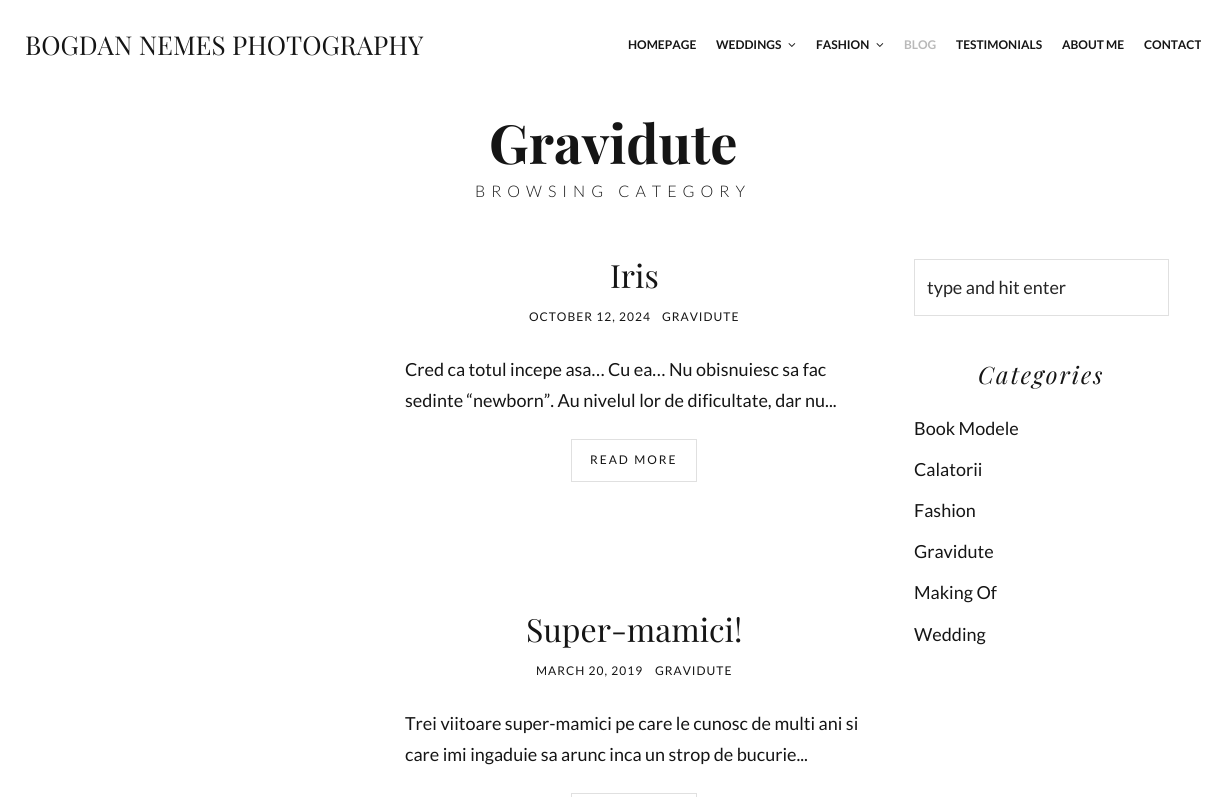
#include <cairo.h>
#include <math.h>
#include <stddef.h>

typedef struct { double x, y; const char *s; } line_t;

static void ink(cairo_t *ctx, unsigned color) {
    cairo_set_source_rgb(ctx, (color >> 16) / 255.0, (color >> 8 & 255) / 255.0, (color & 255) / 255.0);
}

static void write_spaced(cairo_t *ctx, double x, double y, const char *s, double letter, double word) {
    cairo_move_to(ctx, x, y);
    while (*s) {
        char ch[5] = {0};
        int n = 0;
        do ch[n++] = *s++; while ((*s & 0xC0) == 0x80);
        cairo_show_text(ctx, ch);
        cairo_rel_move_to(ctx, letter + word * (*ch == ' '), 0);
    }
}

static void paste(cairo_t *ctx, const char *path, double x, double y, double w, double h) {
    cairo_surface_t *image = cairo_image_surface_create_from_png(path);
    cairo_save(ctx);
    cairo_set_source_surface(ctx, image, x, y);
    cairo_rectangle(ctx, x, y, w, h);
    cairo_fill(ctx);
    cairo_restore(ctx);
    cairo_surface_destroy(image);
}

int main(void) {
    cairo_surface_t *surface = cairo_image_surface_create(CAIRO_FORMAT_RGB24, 1227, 797);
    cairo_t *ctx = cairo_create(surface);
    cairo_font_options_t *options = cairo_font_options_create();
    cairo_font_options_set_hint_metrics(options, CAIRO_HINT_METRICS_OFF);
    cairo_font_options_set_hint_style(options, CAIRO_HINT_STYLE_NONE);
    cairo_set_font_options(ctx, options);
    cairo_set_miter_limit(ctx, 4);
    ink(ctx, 0xFFFFFF);
    cairo_paint(ctx);
    cairo_select_font_face(ctx, "Playfair Display", CAIRO_FONT_SLANT_NORMAL, CAIRO_FONT_WEIGHT_NORMAL);
    cairo_set_font_size(ctx, 26);
    ink(ctx, 0x151515);
    cairo_move_to(ctx, 25, 55);
    cairo_show_text(ctx, "BOGDAN NEMES PHOTOGRAPHY");
    cairo_select_font_face(ctx, "Lato", CAIRO_FONT_SLANT_NORMAL, CAIRO_FONT_WEIGHT_BOLD);
    cairo_set_font_size(ctx, 12);
    cairo_move_to(ctx, 628, 49);
    cairo_show_text(ctx, "HOMEPAGE");
    cairo_move_to(ctx, 716, 49);
    cairo_show_text(ctx, "WEDDINGS");
    paste(ctx, "media/1.png", 788, 43, 8, 4);
    cairo_move_to(ctx, 816, 49);
    cairo_show_text(ctx, "FASHION");
    paste(ctx, "media/1.png", 876, 43, 8, 4);
    ink(ctx, 0xB9B9B9);
    cairo_move_to(ctx, 904, 49);
    cairo_show_text(ctx, "BLOG");
    ink(ctx, 0x151515);
    {
        static const line_t items[] = {
            {956, 49, "TESTIMONIALS"},
            {1062, 49, "ABOUT ME"},
            {1144, 49, "CONTACT"},
        };
        for (size_t i = 0; i < sizeof items / sizeof *items; i++) {
            cairo_move_to(ctx, items[i].x, items[i].y);
            cairo_show_text(ctx, items[i].s);
        }
    }
    cairo_select_font_face(ctx, "Playfair Display", CAIRO_FONT_SLANT_NORMAL, CAIRO_FONT_WEIGHT_BOLD);
    cairo_set_font_size(ctx, 54);
    cairo_move_to(ctx, 489, 164);
    cairo_show_text(ctx, "Gravidute");
    cairo_select_font_face(ctx, "Lato Light", CAIRO_FONT_SLANT_NORMAL, CAIRO_FONT_WEIGHT_NORMAL);
    cairo_set_font_size(ctx, 16);
    write_spaced(ctx, 475, 197, "BROWSING CATEGORY", 6, 0);
    cairo_select_font_face(ctx, "Playfair Display", CAIRO_FONT_SLANT_NORMAL, CAIRO_FONT_WEIGHT_NORMAL);
    cairo_set_font_size(ctx, 32);
    cairo_move_to(ctx, 610, 288);
    cairo_show_text(ctx, "Iris");
    cairo_select_font_face(ctx, "Lato", CAIRO_FONT_SLANT_NORMAL, CAIRO_FONT_WEIGHT_NORMAL);
    cairo_set_font_size(ctx, 12);
    write_spaced(ctx, 529, 321, "OCTOBER 12, 2024", 1, 0);
    write_spaced(ctx, 662, 321, "GRAVIDUTE", 1, 0);
    cairo_set_font_size(ctx, 18);
    cairo_move_to(ctx, 405, 376);
    cairo_show_text(ctx, "Cred ca totul incepe asa… Cu ea… Nu obisnuiesc sa fac");
    cairo_move_to(ctx, 405, 407);
    cairo_show_text(ctx, "sedinte “newborn”. Au nivelul lor de dificultate, dar nu...");
    cairo_rectangle(ctx, 571.5, 439.5, 125, 42);
    ink(ctx, 0xE0E0E0);
    cairo_set_line_width(ctx, 1);
    cairo_stroke(ctx);
    cairo_set_font_size(ctx, 12);
    ink(ctx, 0x151515);
    write_spaced(ctx, 590, 464, "READ MORE", 2, 0);
    cairo_select_font_face(ctx, "Playfair Display", CAIRO_FONT_SLANT_NORMAL, CAIRO_FONT_WEIGHT_NORMAL);
    cairo_set_font_size(ctx, 32);
    cairo_move_to(ctx, 526, 642);
    cairo_show_text(ctx, "Super-mamici!");
    cairo_select_font_face(ctx, "Lato", CAIRO_FONT_SLANT_NORMAL, CAIRO_FONT_WEIGHT_NORMAL);
    cairo_set_font_size(ctx, 12);
    write_spaced(ctx, 536, 675, "MARCH 20, 2019", 1, 0);
    write_spaced(ctx, 655, 675, "GRAVIDUTE", 1, 0);
    cairo_set_font_size(ctx, 18);
    cairo_move_to(ctx, 405, 730);
    cairo_show_text(ctx, "Trei viitoare super-mamici pe care le cunosc de multi ani si");
    cairo_move_to(ctx, 405, 761);
    cairo_show_text(ctx, "care imi ingaduie sa arunc inca un strop de bucurie...");
    cairo_rectangle(ctx, 571.5, 793.5, 125, 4);
    ink(ctx, 0xE0E0E0);
    cairo_stroke(ctx);
    cairo_rectangle(ctx, 914.5, 259.5, 254, 56);
    cairo_stroke(ctx);
    ink(ctx, 0x252525);
    cairo_move_to(ctx, 927, 294);
    cairo_show_text(ctx, "type and hit enter");
    cairo_select_font_face(ctx, "Playfair Display", CAIRO_FONT_SLANT_ITALIC, CAIRO_FONT_WEIGHT_NORMAL);
    cairo_set_font_size(ctx, 24);
    ink(ctx, 0x151515);
    write_spaced(ctx, 978, 384, "Categories", 2, 0);
    cairo_select_font_face(ctx, "Lato", CAIRO_FONT_SLANT_NORMAL, CAIRO_FONT_WEIGHT_NORMAL);
    cairo_set_font_size(ctx, 18);
    {
        static const line_t items[] = {
            {914, 435, "Book Modele"},
            {914, 476, "Calatorii"},
            {914, 517, "Fashion"},
            {914, 558, "Gravidute"},
            {914, 599, "Making Of"},
            {914, 641, "Wedding"},
        };
        for (size_t i = 0; i < sizeof items / sizeof *items; i++) {
            cairo_move_to(ctx, items[i].x, items[i].y);
            cairo_show_text(ctx, items[i].s);
        }
    }
    cairo_surface_write_to_png(surface, "image.png");
    cairo_font_options_destroy(options);
    cairo_destroy(ctx);
    cairo_surface_destroy(surface);
    return 0;
}
